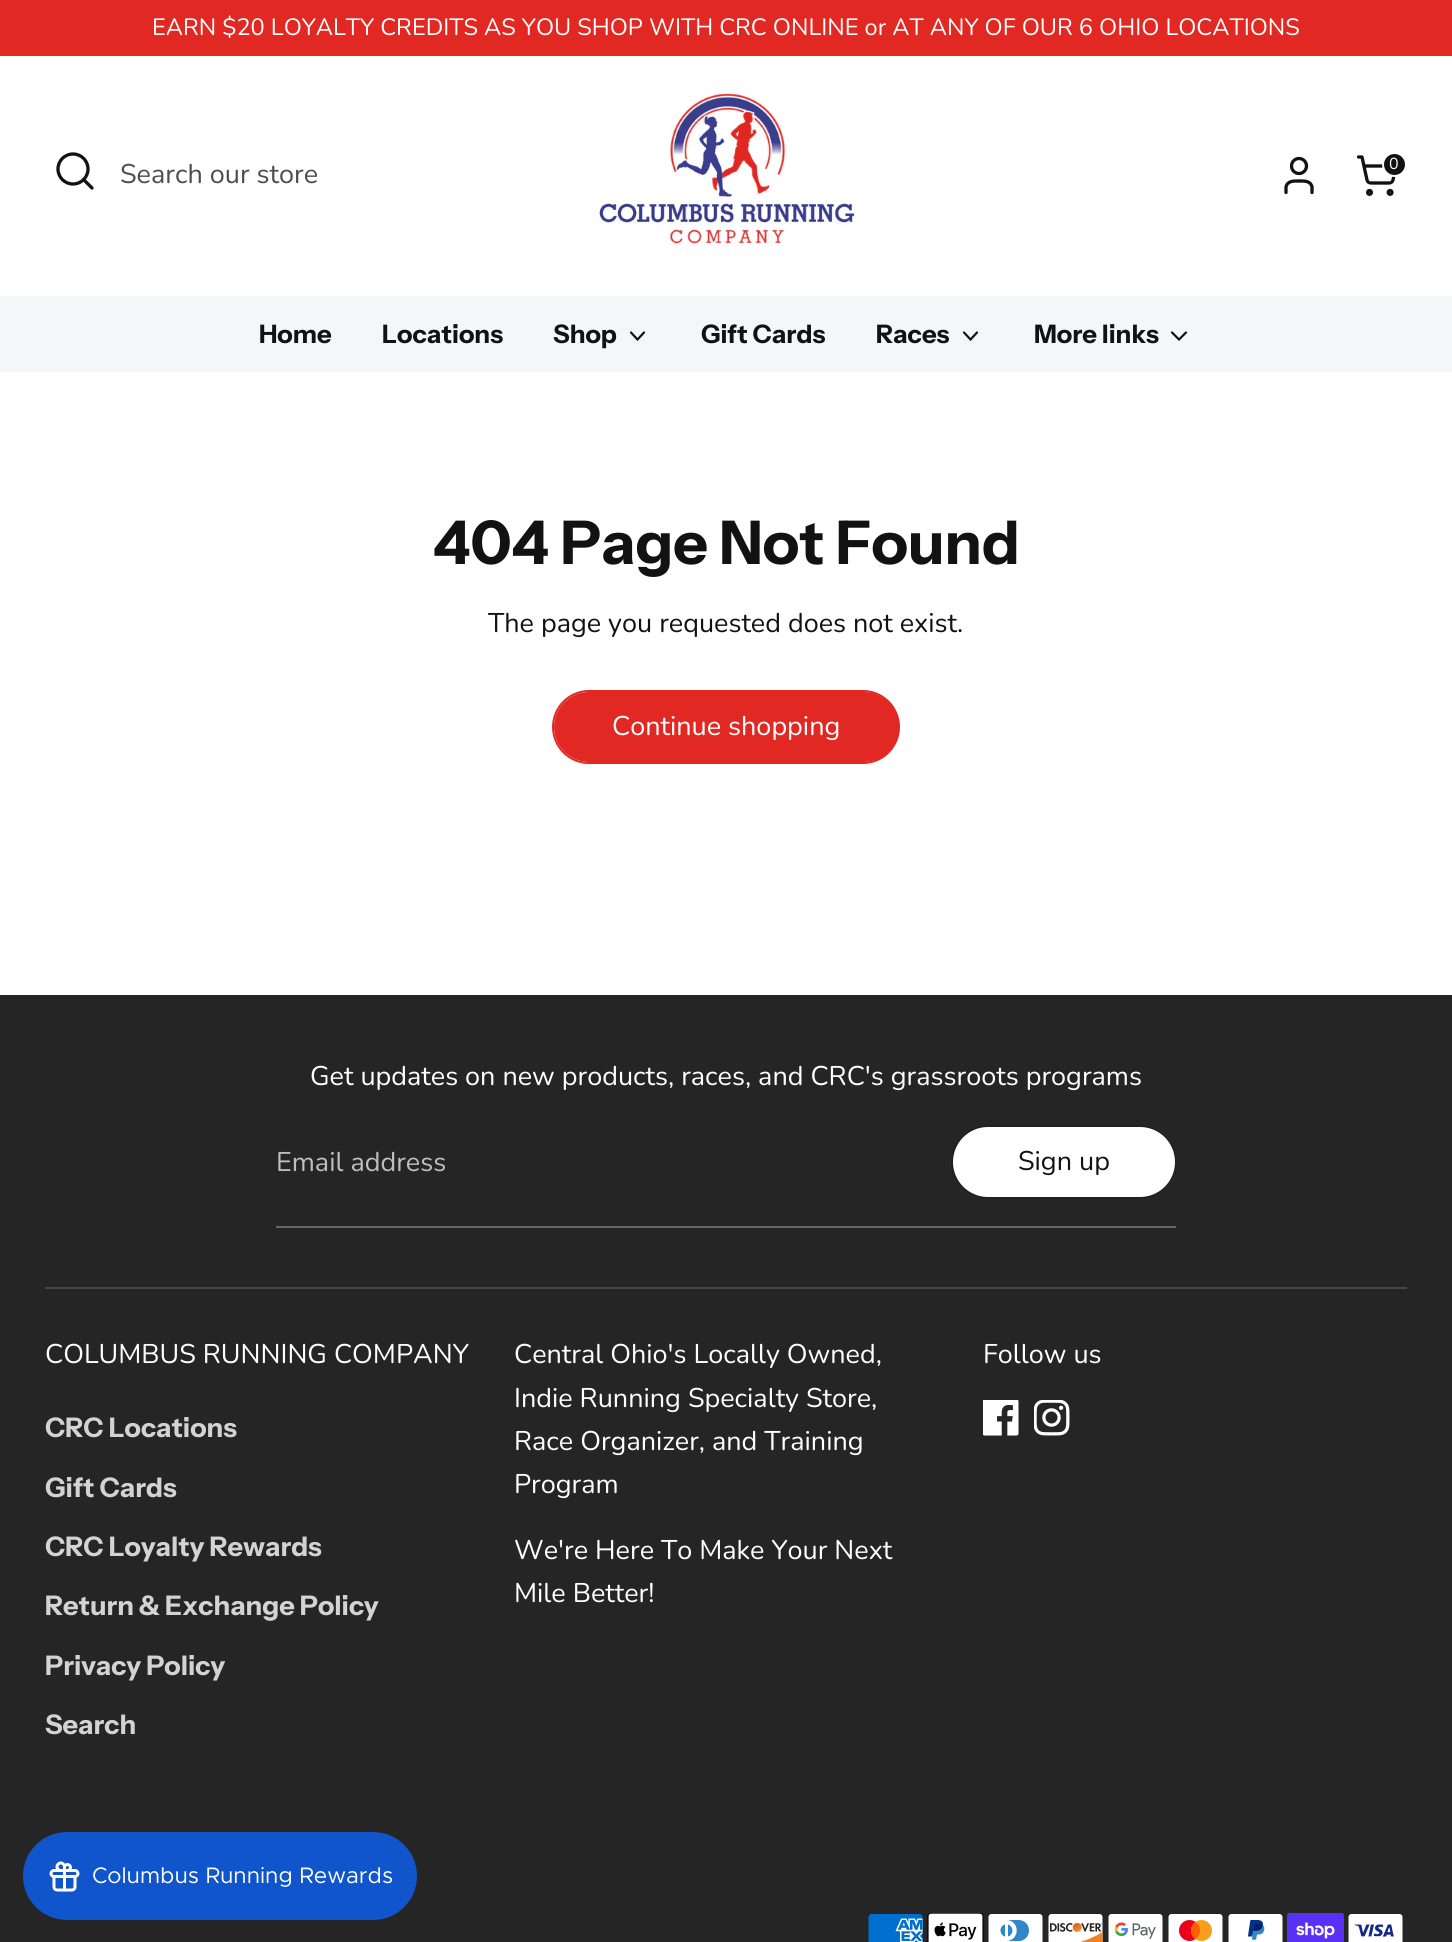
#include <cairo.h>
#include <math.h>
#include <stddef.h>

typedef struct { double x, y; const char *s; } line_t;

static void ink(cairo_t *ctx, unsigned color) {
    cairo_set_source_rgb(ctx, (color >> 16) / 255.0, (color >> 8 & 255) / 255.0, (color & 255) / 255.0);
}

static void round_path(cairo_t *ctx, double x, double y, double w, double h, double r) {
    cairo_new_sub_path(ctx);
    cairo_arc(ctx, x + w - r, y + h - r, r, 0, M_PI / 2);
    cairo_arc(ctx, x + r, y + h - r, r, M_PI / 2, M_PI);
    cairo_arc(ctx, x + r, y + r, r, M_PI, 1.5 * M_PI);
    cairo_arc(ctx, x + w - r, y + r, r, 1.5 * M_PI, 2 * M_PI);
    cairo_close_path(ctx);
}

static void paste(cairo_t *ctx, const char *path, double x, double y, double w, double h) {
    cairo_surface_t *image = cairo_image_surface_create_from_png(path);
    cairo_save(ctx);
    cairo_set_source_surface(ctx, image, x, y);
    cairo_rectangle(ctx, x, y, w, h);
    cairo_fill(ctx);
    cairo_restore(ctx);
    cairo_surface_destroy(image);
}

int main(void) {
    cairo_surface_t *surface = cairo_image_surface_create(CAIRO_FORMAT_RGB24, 1452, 1942);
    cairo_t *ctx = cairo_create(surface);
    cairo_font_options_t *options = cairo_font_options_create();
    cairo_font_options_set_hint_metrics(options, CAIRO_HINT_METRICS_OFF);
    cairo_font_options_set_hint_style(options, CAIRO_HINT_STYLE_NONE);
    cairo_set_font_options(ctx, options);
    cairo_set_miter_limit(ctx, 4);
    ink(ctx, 0xFFFFFF);
    cairo_paint(ctx);
    ink(ctx, 0xE12822);
    cairo_rectangle(ctx, 0, 0, 1452, 56);
    cairo_fill(ctx);
    cairo_select_font_face(ctx, "Nunito", CAIRO_FONT_SLANT_NORMAL, CAIRO_FONT_WEIGHT_NORMAL);
    cairo_set_font_size(ctx, 23.6);
    ink(ctx, 0xFFFFFF);
    cairo_move_to(ctx, 152, 35);
    cairo_show_text(ctx, "EARN $20 LOYALTY CREDITS AS YOU SHOP WITH CRC ONLINE or AT ANY OF OUR 6 OHIO LOCATIONS");
    cairo_new_path(ctx);
    cairo_arc(ctx, 73, 169, 15, 0, 2 * M_PI);
    ink(ctx, 0x121212);
    cairo_set_line_width(ctx, 3.3);
    cairo_stroke(ctx);
    cairo_new_path(ctx);
    cairo_move_to(ctx, 92, 188);
    cairo_line_to(ctx, 83.5, 179.5);
    cairo_set_line_cap(ctx, CAIRO_LINE_CAP_ROUND);
    cairo_set_line_join(ctx, CAIRO_LINE_JOIN_ROUND);
    cairo_stroke(ctx);
    cairo_set_font_size(ctx, 27);
    ink(ctx, 0x4D4D4D);
    cairo_move_to(ctx, 120, 183);
    cairo_show_text(ctx, "Search our store");
    paste(ctx, "media/1.png", 599, 92, 256, 154);
    cairo_new_path(ctx);
    cairo_move_to(ctx, 1312, 192.5);
    cairo_line_to(ctx, 1312, 187);
    cairo_curve_to(ctx, 1310.5, 180.5, 1304, 181, 1299, 181);
    cairo_curve_to(ctx, 1294, 181, 1287.5, 180.5, 1286, 187);
    cairo_line_to(ctx, 1286, 192.5);
    ink(ctx, 0x121212);
    cairo_stroke(ctx);
    cairo_arc(ctx, 1299, 166, 7.5, 0, 2 * M_PI);
    cairo_set_line_cap(ctx, CAIRO_LINE_CAP_BUTT);
    cairo_set_line_join(ctx, CAIRO_LINE_JOIN_MITER);
    cairo_stroke(ctx);
    cairo_arc(ctx, 1369.5, 192.4, 1.9, 0, 2 * M_PI);
    cairo_stroke(ctx);
    cairo_arc(ctx, 1390.1, 192.4, 1.9, 0, 2 * M_PI);
    cairo_stroke(ctx);
    cairo_new_path(ctx);
    cairo_move_to(ctx, 1358.5, 157);
    cairo_line_to(ctx, 1362, 157);
    cairo_line_to(ctx, 1367, 180);
    cairo_curve_to(ctx, 1367.5, 182, 1369, 183, 1371, 183);
    cairo_line_to(ctx, 1389, 183);
    cairo_curve_to(ctx, 1391, 183, 1392.5, 182, 1393, 180);
    cairo_line_to(ctx, 1396, 166);
    cairo_line_to(ctx, 1364, 166);
    cairo_set_line_cap(ctx, CAIRO_LINE_CAP_ROUND);
    cairo_set_line_join(ctx, CAIRO_LINE_JOIN_ROUND);
    cairo_stroke(ctx);
    cairo_arc(ctx, 1394.5, 164.5, 11.5, 0, 2 * M_PI);
    cairo_fill_preserve(ctx);
    ink(ctx, 0xFFFFFF);
    cairo_set_line_width(ctx, 2);
    cairo_set_line_cap(ctx, CAIRO_LINE_CAP_BUTT);
    cairo_set_line_join(ctx, CAIRO_LINE_JOIN_MITER);
    cairo_stroke(ctx);
    cairo_set_font_size(ctx, 16);
    cairo_move_to(ctx, 1389, 169);
    cairo_show_text(ctx, "0");
    ink(ctx, 0xF4F6F8);
    cairo_rectangle(ctx, 0, 296, 1452, 76);
    cairo_fill(ctx);
    cairo_select_font_face(ctx, "Instrument Sans", CAIRO_FONT_SLANT_NORMAL, CAIRO_FONT_WEIGHT_BOLD);
    cairo_set_font_size(ctx, 25.5);
    ink(ctx, 0x121212);
    {
        static const line_t items[] = {
            {259, 343, "Home"},
            {382, 343, "Locations"},
            {553, 343, "Shop"},
        };
        for (size_t i = 0; i < sizeof items / sizeof *items; i++) {
            cairo_move_to(ctx, items[i].x, items[i].y);
            cairo_show_text(ctx, items[i].s);
        }
    }
    cairo_new_path(ctx);
    cairo_move_to(ctx, 631, 332.5);
    cairo_line_to(ctx, 637.5, 339.5);
    cairo_line_to(ctx, 644, 332.5);
    cairo_set_line_width(ctx, 2.2);
    cairo_set_line_cap(ctx, CAIRO_LINE_CAP_ROUND);
    cairo_stroke(ctx);
    cairo_move_to(ctx, 701, 343);
    cairo_show_text(ctx, "Gift Cards");
    cairo_move_to(ctx, 876, 343);
    cairo_show_text(ctx, "Races");
    cairo_new_path(ctx);
    cairo_move_to(ctx, 964, 332.5);
    cairo_line_to(ctx, 970.5, 339.5);
    cairo_line_to(ctx, 977, 332.5);
    cairo_stroke(ctx);
    cairo_move_to(ctx, 1034, 343);
    cairo_show_text(ctx, "More links");
    cairo_new_path(ctx);
    cairo_move_to(ctx, 1172, 332.5);
    cairo_line_to(ctx, 1179, 339.5);
    cairo_line_to(ctx, 1186, 332.5);
    cairo_stroke(ctx);
    cairo_set_font_size(ctx, 60.25);
    cairo_move_to(ctx, 433, 564);
    cairo_show_text(ctx, "404 Page Not Found");
    cairo_select_font_face(ctx, "Nunito", CAIRO_FONT_SLANT_NORMAL, CAIRO_FONT_WEIGHT_NORMAL);
    cairo_set_font_size(ctx, 27);
    cairo_move_to(ctx, 488, 632);
    cairo_show_text(ctx, "The page you requested does not exist.");
    round_path(ctx, 553, 691, 346, 72, 36);
    ink(ctx, 0xE12822);
    cairo_set_line_width(ctx, 2);
    cairo_set_line_cap(ctx, CAIRO_LINE_CAP_BUTT);
    cairo_stroke(ctx);
    round_path(ctx, 554, 692, 345, 70, 35);
    cairo_fill(ctx);
    ink(ctx, 0xFFFFFF);
    cairo_move_to(ctx, 612, 735);
    cairo_show_text(ctx, "Continue shopping");
    ink(ctx, 0x252525);
    cairo_rectangle(ctx, 0, 995, 1452, 947);
    cairo_fill(ctx);
    ink(ctx, 0xFFFFFF);
    cairo_move_to(ctx, 310, 1085);
    cairo_show_text(ctx, "Get updates on new products, races, and CRC's grassroots programs");
    ink(ctx, 0x666666);
    cairo_rectangle(ctx, 276, 1226, 900, 2);
    cairo_fill(ctx);
    ink(ctx, 0xBEBEBE);
    cairo_move_to(ctx, 276, 1171);
    cairo_show_text(ctx, "Email address");
    round_path(ctx, 952, 1126, 223, 72, 36);
    ink(ctx, 0x202020);
    cairo_stroke(ctx);
    ink(ctx, 0xFFFFFF);
    round_path(ctx, 953, 1127, 222, 70, 35);
    cairo_fill(ctx);
    ink(ctx, 0x121212);
    cairo_move_to(ctx, 1018, 1170);
    cairo_show_text(ctx, "Sign up");
    ink(ctx, 0x464646);
    cairo_rectangle(ctx, 45, 1287, 1362, 2);
    cairo_fill(ctx);
    ink(ctx, 0xFFFFFF);
    cairo_move_to(ctx, 45, 1363);
    cairo_show_text(ctx, "COLUMBUS RUNNING COMPANY");
    cairo_select_font_face(ctx, "Instrument Sans", CAIRO_FONT_SLANT_NORMAL, CAIRO_FONT_WEIGHT_BOLD);
    ink(ctx, 0xD3D3D3);
    {
        static const line_t items[] = {
            {45, 1437, "CRC Locations"},
            {45, 1497, "Gift Cards"},
            {45, 1556, "CRC Loyalty Rewards"},
            {45, 1615, "Return & Exchange Policy"},
            {45, 1675, "Privacy Policy"},
            {45, 1734, "Search"},
        };
        for (size_t i = 0; i < sizeof items / sizeof *items; i++) {
            cairo_move_to(ctx, items[i].x, items[i].y);
            cairo_show_text(ctx, items[i].s);
        }
    }
    cairo_select_font_face(ctx, "Nunito", CAIRO_FONT_SLANT_NORMAL, CAIRO_FONT_WEIGHT_NORMAL);
    ink(ctx, 0xFFFFFF);
    {
        static const line_t items[] = {
            {514, 1363, "Central Ohio's Locally Owned,"},
            {514, 1407, "Indie Running Specialty Store,"},
            {514, 1450, "Race Organizer, and Training"},
            {514, 1493, "Program"},
            {514, 1559, "We're Here To Make Your Next"},
            {514, 1602, "Mile Better!"},
            {983, 1363, "Follow us"},
        };
        for (size_t i = 0; i < sizeof items / sizeof *items; i++) {
            cairo_move_to(ctx, items[i].x, items[i].y);
            cairo_show_text(ctx, items[i].s);
        }
    }
    paste(ctx, "media/2.png", 983, 1400, 36, 36);
    paste(ctx, "media/3.png", 1034, 1400, 36, 36);
    paste(ctx, "media/4.png", 868, 1914, 55, 28);
    paste(ctx, "media/5.png", 927, 1913, 57, 29);
    paste(ctx, "media/6.png", 988, 1914, 55, 28);
    paste(ctx, "media/7.png", 1048, 1914, 55, 28);
    paste(ctx, "media/8.png", 1108, 1914, 55, 28);
    paste(ctx, "media/9.png", 1168, 1914, 55, 28);
    paste(ctx, "media/10.png", 1228, 1914, 55, 28);
    paste(ctx, "media/11.png", 1287, 1913, 57, 29);
    paste(ctx, "media/12.png", 1348, 1914, 55, 28);
    ink(ctx, 0x1155CC);
    round_path(ctx, 23, 1832, 394, 88, 44);
    cairo_fill(ctx);
    paste(ctx, "media/13.png", 49, 1861, 31, 31);
    cairo_select_font_face(ctx, "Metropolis", CAIRO_FONT_SLANT_NORMAL, CAIRO_FONT_WEIGHT_NORMAL);
    cairo_set_font_size(ctx, 22.5);
    ink(ctx, 0xFFFFFF);
    cairo_move_to(ctx, 92, 1883);
    cairo_show_text(ctx, "Columbus Running Rewards");
    cairo_surface_write_to_png(surface, "image.png");
    cairo_font_options_destroy(options);
    cairo_destroy(ctx);
    cairo_surface_destroy(surface);
    return 0;
}
